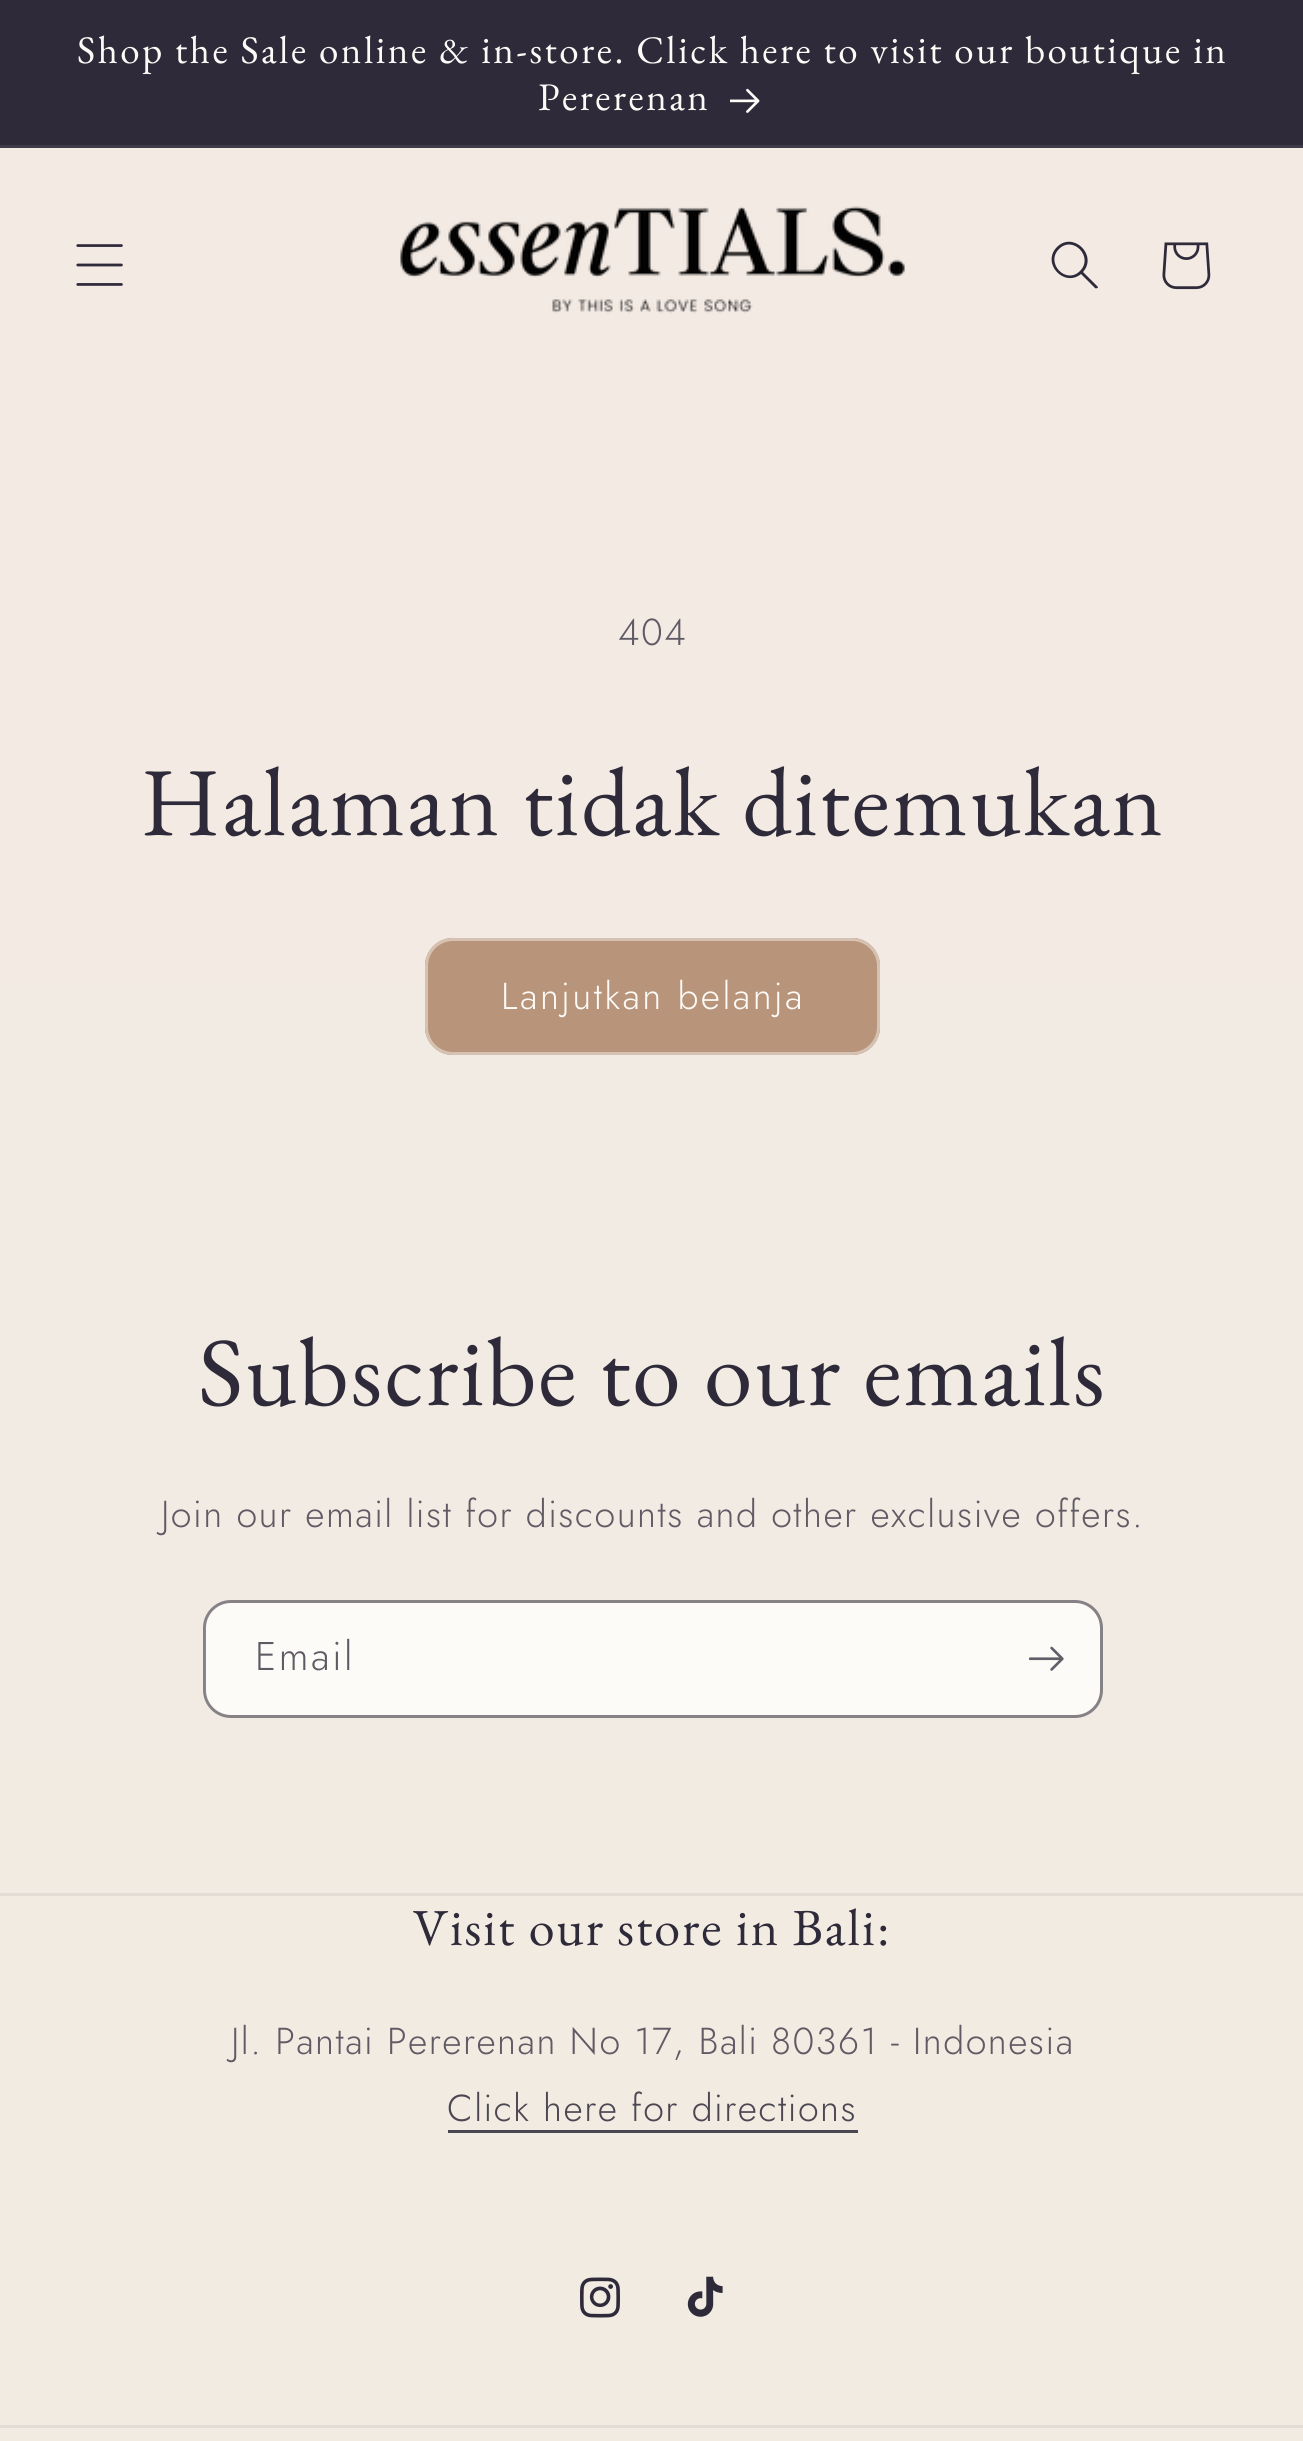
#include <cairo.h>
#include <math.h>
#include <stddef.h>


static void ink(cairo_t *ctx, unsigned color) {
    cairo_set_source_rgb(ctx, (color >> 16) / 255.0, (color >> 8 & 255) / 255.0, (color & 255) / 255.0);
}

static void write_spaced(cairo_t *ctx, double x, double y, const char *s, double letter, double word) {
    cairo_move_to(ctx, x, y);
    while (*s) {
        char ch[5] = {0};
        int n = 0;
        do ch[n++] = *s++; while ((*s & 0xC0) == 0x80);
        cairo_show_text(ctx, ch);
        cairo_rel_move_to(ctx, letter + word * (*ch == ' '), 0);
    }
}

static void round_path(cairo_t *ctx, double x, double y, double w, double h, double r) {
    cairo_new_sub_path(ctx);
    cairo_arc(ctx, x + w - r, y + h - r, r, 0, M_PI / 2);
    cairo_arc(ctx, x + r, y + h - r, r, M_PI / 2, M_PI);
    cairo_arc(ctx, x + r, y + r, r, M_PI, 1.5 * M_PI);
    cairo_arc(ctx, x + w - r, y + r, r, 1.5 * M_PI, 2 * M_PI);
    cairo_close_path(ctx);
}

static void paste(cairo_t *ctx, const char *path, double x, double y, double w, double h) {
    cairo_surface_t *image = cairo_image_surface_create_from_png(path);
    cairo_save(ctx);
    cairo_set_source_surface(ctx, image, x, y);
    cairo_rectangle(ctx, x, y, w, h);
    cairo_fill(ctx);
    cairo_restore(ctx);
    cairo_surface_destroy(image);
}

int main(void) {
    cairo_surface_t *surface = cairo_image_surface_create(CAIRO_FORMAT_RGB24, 1303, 2441);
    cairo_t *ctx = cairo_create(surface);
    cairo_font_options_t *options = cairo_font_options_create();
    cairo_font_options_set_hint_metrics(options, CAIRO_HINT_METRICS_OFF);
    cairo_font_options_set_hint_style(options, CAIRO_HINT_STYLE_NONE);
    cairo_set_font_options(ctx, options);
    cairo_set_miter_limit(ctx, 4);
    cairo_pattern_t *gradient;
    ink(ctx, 0xFFFFFF);
    cairo_paint(ctx);
    gradient = cairo_pattern_create_linear(652, 0, 653, 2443);
    cairo_pattern_add_color_stop_rgba(gradient, 0, 0.953, 0.918, 0.894, 1);
    cairo_pattern_add_color_stop_rgba(gradient, 1, 0.945, 0.922, 0.886, 1);
    cairo_set_source(ctx, gradient);
    cairo_pattern_destroy(gradient);
    cairo_rectangle(ctx, 0, 148, 1303, 2293);
    cairo_fill(ctx);
    ink(ctx, 0x2E2A39);
    cairo_rectangle(ctx, 0, 0, 1303, 145);
    cairo_fill(ctx);
    ink(ctx, 0x3F3B48);
    cairo_rectangle(ctx, 0, 145, 1303, 3);
    cairo_fill(ctx);
    cairo_select_font_face(ctx, "EB Garamond", CAIRO_FONT_SLANT_NORMAL, CAIRO_FONT_WEIGHT_NORMAL);
    cairo_set_font_size(ctx, 39);
    ink(ctx, 0xFDFBF7);
    write_spaced(ctx, 77, 63, "Shop the Sale online & in-store. Click here to visit our boutique in", 2.5, 0);
    write_spaced(ctx, 538, 110, "Pererenan", 2.5, 0);
    paste(ctx, "media/1.png", 730, 88, 30, 25);
    paste(ctx, "media/2.png", 76, 244, 47, 42);
    paste(ctx, "media/3.png", 400, 206, 505, 108);
    ink(ctx, 0x2E2A39);
    cairo_set_fill_rule(ctx, CAIRO_FILL_RULE_EVEN_ODD);
    cairo_new_path(ctx);
    cairo_move_to(ctx, 1080, 271);
    cairo_curve_to(ctx, 1066, 285, 1045, 263, 1059, 249);
    cairo_curve_to(ctx, 1073, 235, 1094, 257, 1080, 271);
    cairo_move_to(ctx, 1081, 274);
    cairo_curve_to(ctx, 1064, 288, 1041, 263, 1057, 247);
    cairo_curve_to(ctx, 1073, 231, 1098, 255, 1083, 272);
    cairo_line_to(ctx, 1098, 287);
    cairo_curve_to(ctx, 1098, 288, 1096, 289, 1095, 288);
    cairo_close_path(ctx);
    cairo_fill(ctx);
    paste(ctx, "media/4.png", 1162, 242, 49, 48);
    cairo_select_font_face(ctx, "Jost Light", CAIRO_FONT_SLANT_NORMAL, CAIRO_FONT_WEIGHT_NORMAL);
    cairo_set_font_size(ctx, 37.5);
    ink(ctx, 0x5F5A64);
    write_spaced(ctx, 618, 645, "404", 1.5, 0);
    cairo_select_font_face(ctx, "EB Garamond", CAIRO_FONT_SLANT_NORMAL, CAIRO_FONT_WEIGHT_NORMAL);
    cairo_set_font_size(ctx, 97.5);
    ink(ctx, 0x2E2A39);
    write_spaced(ctx, 141, 835, "Halaman tidak ditemukan", 1.95, 0);
    ink(ctx, 0xB7947A);
    round_path(ctx, 425, 938, 455, 117, 28);
    cairo_fill(ctx);
    round_path(ctx, 426.5, 939.5, 452, 114, 26.5);
    cairo_set_line_width(ctx, 3);
    cairo_stroke(ctx);
    round_path(ctx, 426.5, 939.5, 452, 114, 26.5);
    cairo_set_source_rgba(ctx, 0.992, 0.984, 0.969, 0.45);
    cairo_stroke(ctx);
    cairo_select_font_face(ctx, "Jost Light", CAIRO_FONT_SLANT_NORMAL, CAIRO_FONT_WEIGHT_NORMAL);
    cairo_set_font_size(ctx, 37.5);
    ink(ctx, 0xFDFBF7);
    write_spaced(ctx, 501, 1009, "Lanjutkan belanja", 2.5, 0);
    cairo_select_font_face(ctx, "EB Garamond", CAIRO_FONT_SLANT_NORMAL, CAIRO_FONT_WEIGHT_NORMAL);
    cairo_set_font_size(ctx, 97.5);
    ink(ctx, 0x2E2A39);
    write_spaced(ctx, 198, 1405, "Subscribe to our emails", 1.95, 0);
    cairo_select_font_face(ctx, "Jost Light", CAIRO_FONT_SLANT_NORMAL, CAIRO_FONT_WEIGHT_NORMAL);
    cairo_set_font_size(ctx, 37.5);
    ink(ctx, 0x5F5A64);
    write_spaced(ctx, 161, 1527, "Join our email list for discounts and other exclusive offers.", 1.5, 0);
    ink(ctx, 0xFDFBF7);
    round_path(ctx, 205, 1603, 895, 112, 25);
    cairo_fill(ctx);
    round_path(ctx, 204.5, 1601.5, 897, 115, 26.5);
    cairo_set_source_rgba(ctx, 0.18, 0.165, 0.224, 0.55);
    cairo_stroke(ctx);
    cairo_set_font_size(ctx, 40);
    ink(ctx, 0x5F5A64);
    write_spaced(ctx, 255, 1670, "Email", 2.5, 0);
    paste(ctx, "media/5.png", 1028, 1646, 36, 25);
    ink(ctx, 0xE1DCD4);
    cairo_rectangle(ctx, 0, 1893, 1303, 3);
    cairo_fill(ctx);
    cairo_select_font_face(ctx, "EB Garamond", CAIRO_FONT_SLANT_NORMAL, CAIRO_FONT_WEIGHT_NORMAL);
    cairo_set_font_size(ctx, 52);
    ink(ctx, 0x2E2A39);
    write_spaced(ctx, 413, 1945, "Visit our store in Bali:", 1.95, 0);
    cairo_select_font_face(ctx, "Jost Light", CAIRO_FONT_SLANT_NORMAL, CAIRO_FONT_WEIGHT_NORMAL);
    cairo_set_font_size(ctx, 37.5);
    ink(ctx, 0x5F5A64);
    write_spaced(ctx, 231, 2054, "Jl. Pantai Pererenan No 17, Bali 80361 - Indonesia", 1.5, 0);
    ink(ctx, 0x4B4752);
    write_spaced(ctx, 447, 2121, "Click here for directions", 1.5, 0);
    cairo_rectangle(ctx, 448, 2130, 410, 3);
    cairo_fill(ctx);
    paste(ctx, "media/6.png", 580, 2277, 40, 41);
    paste(ctx, "media/7.png", 687, 2276, 36, 41);
    ink(ctx, 0xE1DCD4);
    cairo_rectangle(ctx, 0, 2425, 1303, 3);
    cairo_fill(ctx);
    cairo_surface_write_to_png(surface, "image.png");
    cairo_font_options_destroy(options);
    cairo_destroy(ctx);
    cairo_surface_destroy(surface);
    return 0;
}
